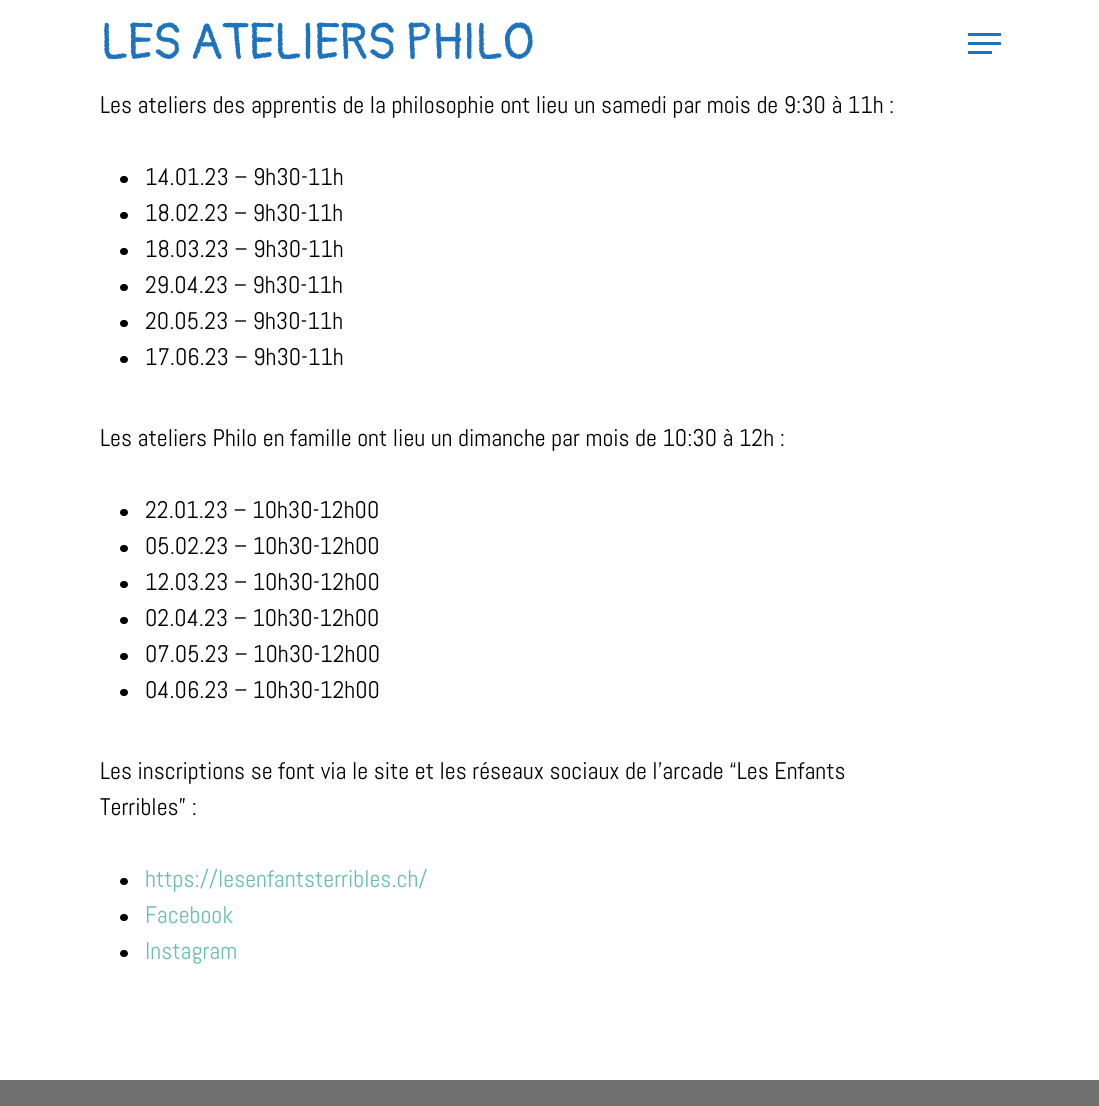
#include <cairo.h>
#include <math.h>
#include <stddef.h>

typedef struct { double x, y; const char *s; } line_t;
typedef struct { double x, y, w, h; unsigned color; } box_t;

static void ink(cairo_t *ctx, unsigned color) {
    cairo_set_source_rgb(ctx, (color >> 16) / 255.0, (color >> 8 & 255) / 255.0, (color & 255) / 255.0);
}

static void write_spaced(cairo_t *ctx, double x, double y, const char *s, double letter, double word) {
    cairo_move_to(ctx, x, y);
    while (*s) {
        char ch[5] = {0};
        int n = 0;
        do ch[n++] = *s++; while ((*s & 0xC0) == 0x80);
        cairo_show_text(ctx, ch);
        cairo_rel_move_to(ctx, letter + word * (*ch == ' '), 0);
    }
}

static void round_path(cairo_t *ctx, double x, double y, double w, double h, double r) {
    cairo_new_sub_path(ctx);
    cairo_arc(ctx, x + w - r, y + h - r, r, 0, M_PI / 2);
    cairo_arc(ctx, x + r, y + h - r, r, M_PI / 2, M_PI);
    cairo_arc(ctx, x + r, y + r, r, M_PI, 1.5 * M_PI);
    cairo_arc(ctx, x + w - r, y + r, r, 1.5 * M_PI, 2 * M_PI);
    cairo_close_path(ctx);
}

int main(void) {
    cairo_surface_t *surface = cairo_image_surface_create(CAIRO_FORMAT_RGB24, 1099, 1106);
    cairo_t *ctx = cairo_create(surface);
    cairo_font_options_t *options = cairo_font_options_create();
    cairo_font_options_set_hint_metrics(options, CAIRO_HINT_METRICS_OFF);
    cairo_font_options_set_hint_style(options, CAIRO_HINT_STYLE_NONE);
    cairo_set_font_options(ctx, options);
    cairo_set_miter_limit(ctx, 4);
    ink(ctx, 0xFFFFFF);
    cairo_paint(ctx);
    cairo_select_font_face(ctx, "Pangolin", CAIRO_FONT_SLANT_NORMAL, CAIRO_FONT_WEIGHT_NORMAL);
    cairo_set_font_size(ctx, 51);
    ink(ctx, 0x1E73BE);
    write_spaced(ctx, 100, 59, "LES ATELIERS PHILO", -1.5, 0);
    {
        static const box_t items[] = {
            {968, 33, 33, 3, 0x1E73BE},
            {968, 51, 24, 3, 0x1E73BE},
            {968, 42, 33, 3, 0x1E73BE},
        };
        for (size_t i = 0; i < sizeof items / sizeof *items; i++) {
            ink(ctx, items[i].color);
            cairo_rectangle(ctx, items[i].x, items[i].y, items[i].w, items[i].h);
            cairo_fill(ctx);
        }
    }
    cairo_select_font_face(ctx, "Abel", CAIRO_FONT_SLANT_NORMAL, CAIRO_FONT_WEIGHT_NORMAL);
    cairo_set_font_size(ctx, 24);
    ink(ctx, 0x000000);
    cairo_move_to(ctx, 100, 113);
    cairo_show_text(ctx, "Les ateliers des apprentis de la philosophie ont lieu un samedi par mois de 9:30 à 11h :");
    round_path(ctx, 120, 176, 8, 7, 3.5);
    cairo_fill(ctx);
    cairo_move_to(ctx, 145, 185);
    cairo_show_text(ctx, "14.01.23 – 9h30-11h");
    round_path(ctx, 120, 212, 8, 7, 3.5);
    cairo_fill(ctx);
    cairo_move_to(ctx, 145, 221);
    cairo_show_text(ctx, "18.02.23 – 9h30-11h");
    round_path(ctx, 120, 248, 8, 7, 3.5);
    cairo_fill(ctx);
    cairo_move_to(ctx, 145, 257);
    cairo_show_text(ctx, "18.03.23 – 9h30-11h");
    round_path(ctx, 120, 284, 8, 7, 3.5);
    cairo_fill(ctx);
    cairo_move_to(ctx, 145, 293);
    cairo_show_text(ctx, "29.04.23 – 9h30-11h");
    round_path(ctx, 120, 320, 8, 7, 3.5);
    cairo_fill(ctx);
    cairo_move_to(ctx, 145, 329);
    cairo_show_text(ctx, "20.05.23 – 9h30-11h");
    round_path(ctx, 120, 356, 8, 7, 3.5);
    cairo_fill(ctx);
    cairo_move_to(ctx, 145, 365);
    cairo_show_text(ctx, "17.06.23 – 9h30-11h");
    cairo_move_to(ctx, 100, 446);
    cairo_show_text(ctx, "Les ateliers Philo en famille ont lieu un dimanche par mois de 10:30 à 12h :");
    round_path(ctx, 120, 509, 8, 7, 3.5);
    cairo_fill(ctx);
    cairo_move_to(ctx, 145, 518);
    cairo_show_text(ctx, "22.01.23 – 10h30-12h00");
    round_path(ctx, 120, 545, 8, 7, 3.5);
    cairo_fill(ctx);
    cairo_move_to(ctx, 145, 554);
    cairo_show_text(ctx, "05.02.23 – 10h30-12h00");
    round_path(ctx, 120, 581, 8, 7, 3.5);
    cairo_fill(ctx);
    cairo_move_to(ctx, 145, 590);
    cairo_show_text(ctx, "12.03.23 – 10h30-12h00");
    round_path(ctx, 120, 617, 8, 7, 3.5);
    cairo_fill(ctx);
    cairo_move_to(ctx, 145, 626);
    cairo_show_text(ctx, "02.04.23 – 10h30-12h00");
    round_path(ctx, 120, 653, 8, 7, 3.5);
    cairo_fill(ctx);
    cairo_move_to(ctx, 145, 662);
    cairo_show_text(ctx, "07.05.23 – 10h30-12h00");
    round_path(ctx, 120, 689, 8, 7, 3.5);
    cairo_fill(ctx);
    {
        static const line_t items[] = {
            {145, 698, "04.06.23 – 10h30-12h00"},
            {100, 779, "Les inscriptions se font via le site et les réseaux sociaux de l’arcade “Les Enfants"},
            {100, 815, "Terribles” :"},
        };
        for (size_t i = 0; i < sizeof items / sizeof *items; i++) {
            cairo_move_to(ctx, items[i].x, items[i].y);
            cairo_show_text(ctx, items[i].s);
        }
    }
    round_path(ctx, 120, 878, 8, 7, 3.5);
    cairo_fill(ctx);
    ink(ctx, 0x69BEAC);
    cairo_move_to(ctx, 145, 887);
    cairo_show_text(ctx, "https://lesenfantsterribles.ch/");
    ink(ctx, 0x000000);
    round_path(ctx, 120, 914, 8, 7, 3.5);
    cairo_fill(ctx);
    ink(ctx, 0x69BEAC);
    cairo_move_to(ctx, 145, 923);
    cairo_show_text(ctx, "Facebook");
    ink(ctx, 0x000000);
    round_path(ctx, 120, 950, 8, 7, 3.5);
    cairo_fill(ctx);
    ink(ctx, 0x69BEAC);
    cairo_move_to(ctx, 145, 959);
    cairo_show_text(ctx, "Instagram");
    ink(ctx, 0x707070);
    cairo_rectangle(ctx, 0, 1080, 1099, 26);
    cairo_fill(ctx);
    cairo_surface_write_to_png(surface, "image.png");
    cairo_font_options_destroy(options);
    cairo_destroy(ctx);
    cairo_surface_destroy(surface);
    return 0;
}
